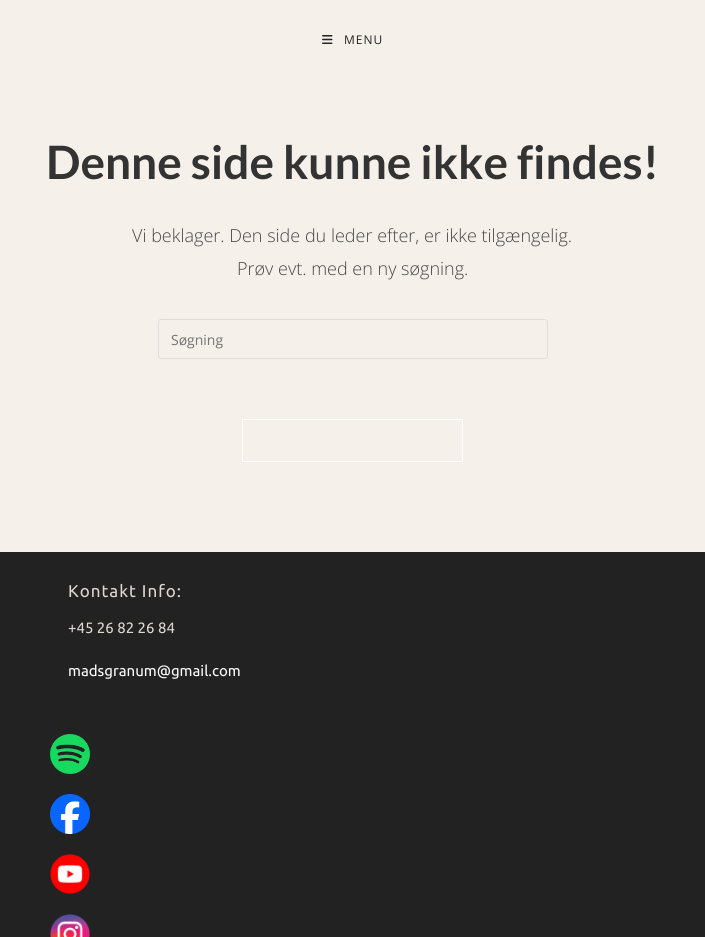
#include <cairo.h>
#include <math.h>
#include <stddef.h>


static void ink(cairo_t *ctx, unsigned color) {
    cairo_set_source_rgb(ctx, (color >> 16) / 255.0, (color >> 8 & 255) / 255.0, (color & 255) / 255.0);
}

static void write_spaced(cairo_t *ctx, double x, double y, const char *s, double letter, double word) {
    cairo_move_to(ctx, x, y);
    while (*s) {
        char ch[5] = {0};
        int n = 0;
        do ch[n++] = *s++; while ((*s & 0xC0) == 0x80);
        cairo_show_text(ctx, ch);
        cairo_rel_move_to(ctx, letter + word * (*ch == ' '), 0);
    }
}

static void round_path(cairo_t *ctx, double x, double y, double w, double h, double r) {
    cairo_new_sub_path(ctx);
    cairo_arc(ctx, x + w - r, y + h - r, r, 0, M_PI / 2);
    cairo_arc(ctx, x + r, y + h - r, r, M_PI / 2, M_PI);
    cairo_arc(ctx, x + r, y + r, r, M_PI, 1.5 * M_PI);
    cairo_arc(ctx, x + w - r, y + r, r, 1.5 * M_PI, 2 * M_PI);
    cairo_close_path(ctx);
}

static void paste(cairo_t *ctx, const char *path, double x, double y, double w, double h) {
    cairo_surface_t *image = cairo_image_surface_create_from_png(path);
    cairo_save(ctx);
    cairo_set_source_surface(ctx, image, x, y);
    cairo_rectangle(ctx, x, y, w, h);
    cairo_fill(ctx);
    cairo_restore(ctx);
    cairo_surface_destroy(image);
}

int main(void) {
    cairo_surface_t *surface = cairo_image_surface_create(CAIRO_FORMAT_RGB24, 705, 937);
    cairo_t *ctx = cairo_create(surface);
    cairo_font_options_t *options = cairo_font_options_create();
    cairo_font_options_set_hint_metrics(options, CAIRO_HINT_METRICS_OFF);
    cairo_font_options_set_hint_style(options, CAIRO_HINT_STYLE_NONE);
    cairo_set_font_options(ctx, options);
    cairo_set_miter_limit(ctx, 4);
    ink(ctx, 0xF5F1EA);
    cairo_paint(ctx);
    paste(ctx, "media/1.png", 322, 35, 11, 9);
    cairo_select_font_face(ctx, "Open Sans", CAIRO_FONT_SLANT_NORMAL, CAIRO_FONT_WEIGHT_NORMAL);
    cairo_set_font_size(ctx, 12);
    ink(ctx, 0x232323);
    write_spaced(ctx, 344, 44, "MENU", 1, 0);
    cairo_select_font_face(ctx, "Lato", CAIRO_FONT_SLANT_NORMAL, CAIRO_FONT_WEIGHT_BOLD);
    cairo_set_font_size(ctx, 46);
    ink(ctx, 0x333333);
    cairo_move_to(ctx, 46, 179);
    cairo_show_text(ctx, "Denne side kunne ikke findes!");
    cairo_select_font_face(ctx, "Open Sans Light", CAIRO_FONT_SLANT_NORMAL, CAIRO_FONT_WEIGHT_NORMAL);
    cairo_set_font_size(ctx, 18);
    ink(ctx, 0x474747);
    cairo_move_to(ctx, 132, 242);
    cairo_show_text(ctx, "Vi beklager. Den side du leder efter, er ikke tilgængelig.");
    cairo_move_to(ctx, 237, 275);
    cairo_show_text(ctx, "Prøv evt. med en ny søgning.");
    round_path(ctx, 158.5, 319.5, 389, 39, 2.5);
    ink(ctx, 0xDDDDDD);
    cairo_set_line_width(ctx, 1);
    cairo_stroke(ctx);
    cairo_select_font_face(ctx, "Open Sans", CAIRO_FONT_SLANT_NORMAL, CAIRO_FONT_WEIGHT_NORMAL);
    cairo_set_font_size(ctx, 14);
    ink(ctx, 0x757575);
    cairo_move_to(ctx, 171, 345);
    cairo_show_text(ctx, "Søgning");
    cairo_rectangle(ctx, 242.5, 419.5, 220, 42);
    ink(ctx, 0xFFFFFF);
    cairo_stroke(ctx);
    ink(ctx, 0x222222);
    cairo_rectangle(ctx, 0, 552, 705, 385);
    cairo_fill(ctx);
    cairo_select_font_face(ctx, "Ubuntu", CAIRO_FONT_SLANT_NORMAL, CAIRO_FONT_WEIGHT_NORMAL);
    cairo_set_font_size(ctx, 17);
    ink(ctx, 0xDBD9D1);
    write_spaced(ctx, 68, 597, "Kontakt Info:", 1, 0);
    cairo_set_font_size(ctx, 15);
    cairo_move_to(ctx, 68, 633);
    cairo_show_text(ctx, "+45 26 82 26 84");
    ink(ctx, 0xFFFFFF);
    cairo_move_to(ctx, 68, 676);
    cairo_show_text(ctx, "madsgranum@gmail.com");
    paste(ctx, "media/2.png", 50, 734, 40, 40);
    paste(ctx, "media/3.png", 50, 794, 40, 40);
    paste(ctx, "media/4.png", 50, 854, 40, 40);
    paste(ctx, "media/5.png", 50, 914, 40, 23);
    cairo_surface_write_to_png(surface, "image.png");
    cairo_font_options_destroy(options);
    cairo_destroy(ctx);
    cairo_surface_destroy(surface);
    return 0;
}
